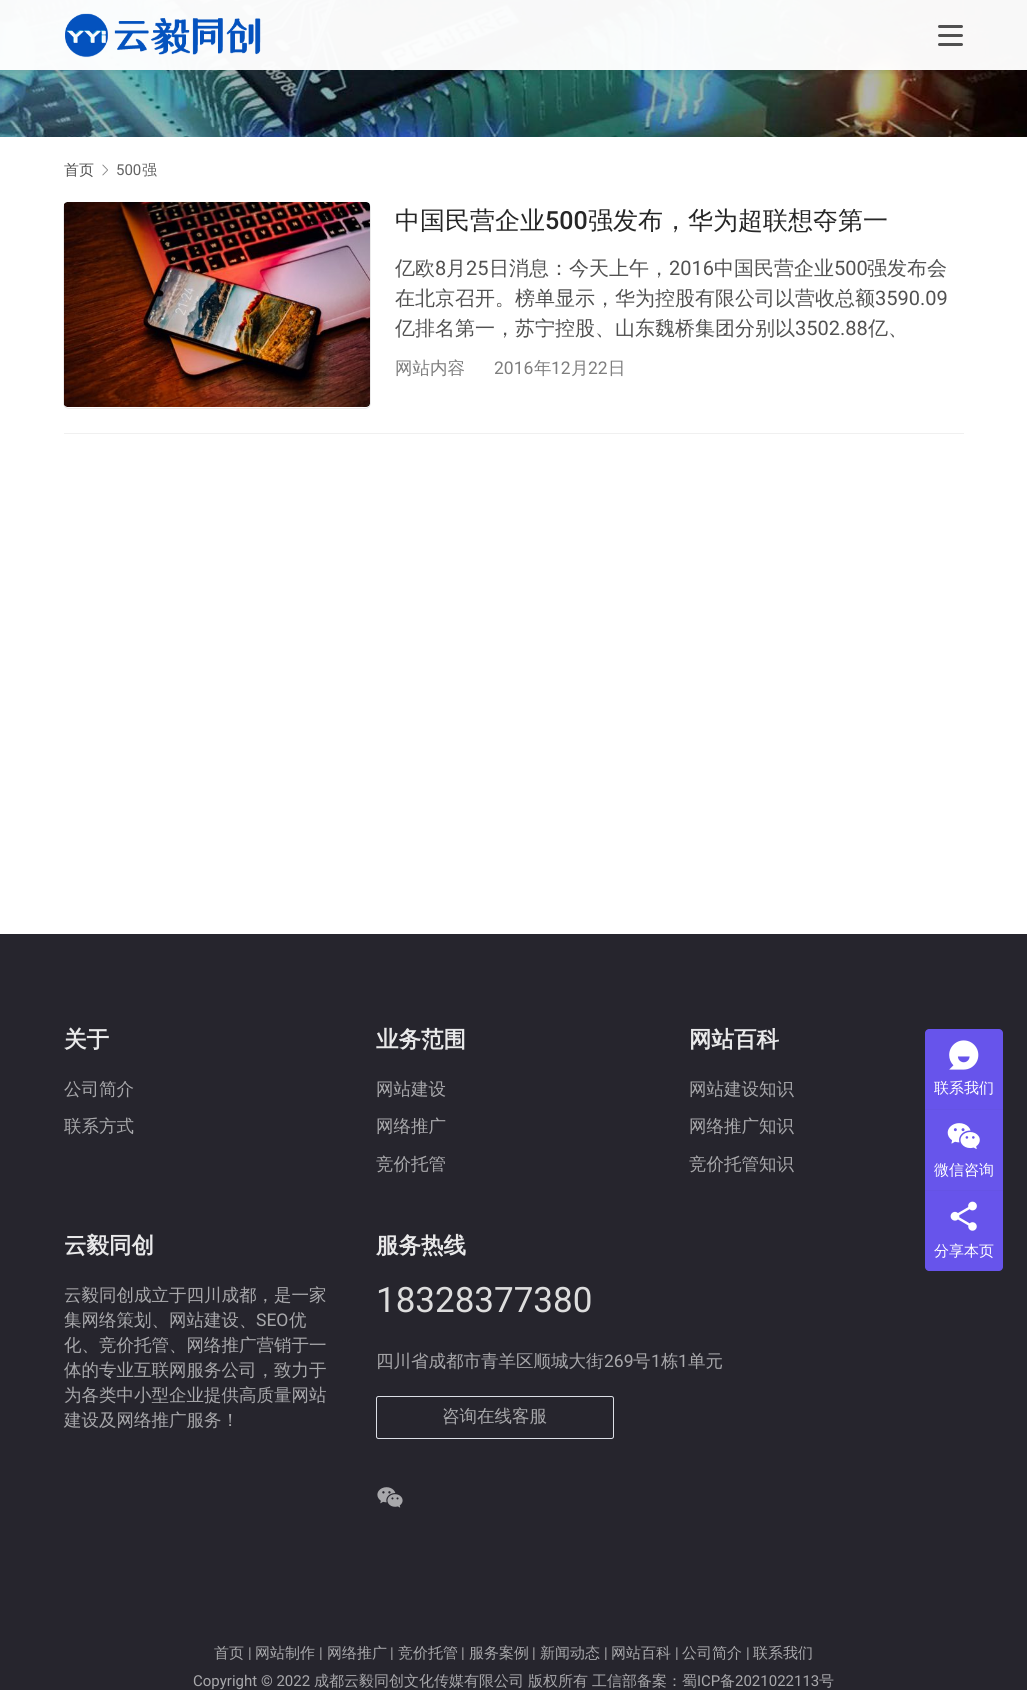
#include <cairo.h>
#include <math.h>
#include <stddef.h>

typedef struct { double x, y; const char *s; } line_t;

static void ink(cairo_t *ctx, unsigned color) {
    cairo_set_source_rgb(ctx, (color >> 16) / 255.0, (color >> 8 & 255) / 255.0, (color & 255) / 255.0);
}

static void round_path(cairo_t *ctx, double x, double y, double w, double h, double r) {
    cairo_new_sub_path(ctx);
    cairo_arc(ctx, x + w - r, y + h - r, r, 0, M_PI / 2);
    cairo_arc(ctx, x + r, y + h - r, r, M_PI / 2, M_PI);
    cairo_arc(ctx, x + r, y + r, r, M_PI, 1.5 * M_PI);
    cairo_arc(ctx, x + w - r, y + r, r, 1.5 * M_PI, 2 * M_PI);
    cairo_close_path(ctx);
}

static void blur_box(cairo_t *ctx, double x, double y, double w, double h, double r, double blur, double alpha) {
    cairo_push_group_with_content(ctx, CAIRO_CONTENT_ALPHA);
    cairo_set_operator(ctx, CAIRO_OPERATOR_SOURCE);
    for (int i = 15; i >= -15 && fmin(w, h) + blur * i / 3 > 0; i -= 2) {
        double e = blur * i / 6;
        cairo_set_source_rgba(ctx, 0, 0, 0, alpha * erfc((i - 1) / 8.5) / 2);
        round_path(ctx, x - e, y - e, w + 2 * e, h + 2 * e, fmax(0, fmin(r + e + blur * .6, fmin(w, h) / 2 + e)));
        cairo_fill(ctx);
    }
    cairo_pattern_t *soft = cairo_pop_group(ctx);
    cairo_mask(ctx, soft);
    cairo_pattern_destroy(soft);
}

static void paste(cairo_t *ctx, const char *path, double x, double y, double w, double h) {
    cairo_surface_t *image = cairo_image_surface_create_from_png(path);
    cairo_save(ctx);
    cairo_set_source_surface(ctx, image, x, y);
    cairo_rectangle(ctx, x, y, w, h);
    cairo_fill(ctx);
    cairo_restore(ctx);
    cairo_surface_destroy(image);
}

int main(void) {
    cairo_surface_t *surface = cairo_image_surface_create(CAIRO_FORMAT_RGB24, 1027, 1690);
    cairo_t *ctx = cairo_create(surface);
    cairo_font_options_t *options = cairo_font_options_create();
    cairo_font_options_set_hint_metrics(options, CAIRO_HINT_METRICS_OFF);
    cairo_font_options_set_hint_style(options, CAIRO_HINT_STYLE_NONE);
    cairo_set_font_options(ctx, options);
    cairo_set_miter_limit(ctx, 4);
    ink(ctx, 0xFFFFFF);
    cairo_paint(ctx);
    paste(ctx, "media/2.png", 0, 0, 1027, 137);
    cairo_save(ctx);
    cairo_rectangle(ctx, 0, 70, 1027, 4);
    cairo_clip(ctx);
    ink(ctx, 0x000000);
    blur_box(ctx, 0, 1, 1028, 70, 0, 3, 0.1);
    cairo_restore(ctx);
    cairo_set_source_rgba(ctx, 1, 1, 1, 0.97);
    cairo_rectangle(ctx, 0, 0, 1027, 70);
    cairo_fill(ctx);
    paste(ctx, "media/1.png", 65, 13, 196, 45);
    ink(ctx, 0x505050);
    round_path(ctx, 938, 25, 25, 3, 1.5);
    cairo_fill(ctx);
    round_path(ctx, 938, 34, 25, 3, 1.5);
    cairo_fill(ctx);
    round_path(ctx, 938, 43, 25, 3, 1.5);
    cairo_fill(ctx);
    cairo_select_font_face(ctx, "WenQuanYi Zen Hei Medium", CAIRO_FONT_SLANT_NORMAL, CAIRO_FONT_WEIGHT_NORMAL);
    cairo_set_font_size(ctx, 15);
    ink(ctx, 0x515151);
    cairo_move_to(ctx, 64, 175);
    cairo_show_text(ctx, "首页");
    paste(ctx, "media/3.png", 102, 164, 6, 12);
    cairo_select_font_face(ctx, "Roboto", CAIRO_FONT_SLANT_NORMAL, CAIRO_FONT_WEIGHT_NORMAL);
    ink(ctx, 0x636363);
    cairo_move_to(ctx, 116, 175);
    cairo_show_text(ctx, "500");
    cairo_select_font_face(ctx, "WenQuanYi Zen Hei Medium", CAIRO_FONT_SLANT_NORMAL, CAIRO_FONT_WEIGHT_NORMAL);
    cairo_move_to(ctx, 142, 175);
    cairo_show_text(ctx, "强");
    ink(ctx, 0xF0F0F0);
    cairo_rectangle(ctx, 64, 433, 900, 1);
    cairo_fill(ctx);
    ink(ctx, 0x000000);
    blur_box(ctx, 64, 203, 306, 205, 4, 0.5, 0.3);
    ink(ctx, 0xFFFFFF);
    round_path(ctx, 64, 203, 306, 205, 4);
    cairo_fill(ctx);
    paste(ctx, "media/4.png", 64, 202, 306, 205);
    cairo_set_font_size(ctx, 25);
    ink(ctx, 0x262626);
    cairo_move_to(ctx, 395, 229);
    cairo_show_text(ctx, "中国民营企业");
    cairo_select_font_face(ctx, "Roboto Medium", CAIRO_FONT_SLANT_NORMAL, CAIRO_FONT_WEIGHT_NORMAL);
    cairo_move_to(ctx, 545, 229);
    cairo_show_text(ctx, "500");
    cairo_select_font_face(ctx, "WenQuanYi Zen Hei Medium", CAIRO_FONT_SLANT_NORMAL, CAIRO_FONT_WEIGHT_NORMAL);
    cairo_move_to(ctx, 588, 229);
    cairo_show_text(ctx, "强发布，华为超联想夺第一");
    cairo_set_font_size(ctx, 20);
    ink(ctx, 0x515151);
    cairo_move_to(ctx, 395, 275);
    cairo_show_text(ctx, "亿欧");
    cairo_select_font_face(ctx, "Roboto", CAIRO_FONT_SLANT_NORMAL, CAIRO_FONT_WEIGHT_NORMAL);
    cairo_move_to(ctx, 435, 275);
    cairo_show_text(ctx, "8");
    cairo_select_font_face(ctx, "WenQuanYi Zen Hei Medium", CAIRO_FONT_SLANT_NORMAL, CAIRO_FONT_WEIGHT_NORMAL);
    cairo_move_to(ctx, 446, 275);
    cairo_show_text(ctx, "月");
    cairo_select_font_face(ctx, "Roboto", CAIRO_FONT_SLANT_NORMAL, CAIRO_FONT_WEIGHT_NORMAL);
    cairo_move_to(ctx, 466, 275);
    cairo_show_text(ctx, "25");
    cairo_select_font_face(ctx, "WenQuanYi Zen Hei Medium", CAIRO_FONT_SLANT_NORMAL, CAIRO_FONT_WEIGHT_NORMAL);
    cairo_move_to(ctx, 489, 275);
    cairo_show_text(ctx, "日消息：今天上午，");
    cairo_select_font_face(ctx, "Roboto", CAIRO_FONT_SLANT_NORMAL, CAIRO_FONT_WEIGHT_NORMAL);
    cairo_move_to(ctx, 669, 275);
    cairo_show_text(ctx, "2016");
    cairo_select_font_face(ctx, "WenQuanYi Zen Hei Medium", CAIRO_FONT_SLANT_NORMAL, CAIRO_FONT_WEIGHT_NORMAL);
    cairo_move_to(ctx, 714, 275);
    cairo_show_text(ctx, "中国民营企业");
    cairo_select_font_face(ctx, "Roboto", CAIRO_FONT_SLANT_NORMAL, CAIRO_FONT_WEIGHT_NORMAL);
    cairo_move_to(ctx, 834, 275);
    cairo_show_text(ctx, "500");
    cairo_select_font_face(ctx, "WenQuanYi Zen Hei Medium", CAIRO_FONT_SLANT_NORMAL, CAIRO_FONT_WEIGHT_NORMAL);
    cairo_move_to(ctx, 867, 275);
    cairo_show_text(ctx, "强发布会");
    cairo_move_to(ctx, 395, 305);
    cairo_show_text(ctx, "在北京召开。榜单显示，华为控股有限公司以营收总额");
    cairo_select_font_face(ctx, "Roboto", CAIRO_FONT_SLANT_NORMAL, CAIRO_FONT_WEIGHT_NORMAL);
    cairo_move_to(ctx, 875, 305);
    cairo_show_text(ctx, "3590.09");
    cairo_select_font_face(ctx, "WenQuanYi Zen Hei Medium", CAIRO_FONT_SLANT_NORMAL, CAIRO_FONT_WEIGHT_NORMAL);
    cairo_move_to(ctx, 395, 335);
    cairo_show_text(ctx, "亿排名第一，苏宁控股、山东魏桥集团分别以");
    cairo_select_font_face(ctx, "Roboto", CAIRO_FONT_SLANT_NORMAL, CAIRO_FONT_WEIGHT_NORMAL);
    cairo_move_to(ctx, 795, 335);
    cairo_show_text(ctx, "3502.88");
    cairo_select_font_face(ctx, "WenQuanYi Zen Hei Medium", CAIRO_FONT_SLANT_NORMAL, CAIRO_FONT_WEIGHT_NORMAL);
    cairo_move_to(ctx, 868, 335);
    cairo_show_text(ctx, "亿、");
    cairo_set_font_size(ctx, 17.5);
    ink(ctx, 0x7D7D7D);
    cairo_move_to(ctx, 395, 374);
    cairo_show_text(ctx, "网站内容");
    cairo_select_font_face(ctx, "Roboto", CAIRO_FONT_SLANT_NORMAL, CAIRO_FONT_WEIGHT_NORMAL);
    cairo_move_to(ctx, 494, 374);
    cairo_show_text(ctx, "2016");
    cairo_select_font_face(ctx, "WenQuanYi Zen Hei Medium", CAIRO_FONT_SLANT_NORMAL, CAIRO_FONT_WEIGHT_NORMAL);
    cairo_move_to(ctx, 534, 374);
    cairo_show_text(ctx, "年");
    cairo_select_font_face(ctx, "Roboto", CAIRO_FONT_SLANT_NORMAL, CAIRO_FONT_WEIGHT_NORMAL);
    cairo_move_to(ctx, 551, 374);
    cairo_show_text(ctx, "12");
    cairo_select_font_face(ctx, "WenQuanYi Zen Hei Medium", CAIRO_FONT_SLANT_NORMAL, CAIRO_FONT_WEIGHT_NORMAL);
    cairo_move_to(ctx, 571, 374);
    cairo_show_text(ctx, "月");
    cairo_select_font_face(ctx, "Roboto", CAIRO_FONT_SLANT_NORMAL, CAIRO_FONT_WEIGHT_NORMAL);
    cairo_move_to(ctx, 588, 374);
    cairo_show_text(ctx, "22");
    cairo_select_font_face(ctx, "WenQuanYi Zen Hei Medium", CAIRO_FONT_SLANT_NORMAL, CAIRO_FONT_WEIGHT_NORMAL);
    cairo_move_to(ctx, 608, 374);
    cairo_show_text(ctx, "日");
    ink(ctx, 0x26252D);
    cairo_rectangle(ctx, 0, 934, 1027, 756);
    cairo_fill(ctx);
    cairo_select_font_face(ctx, "WenQuanYi Zen Hei", CAIRO_FONT_SLANT_NORMAL, CAIRO_FONT_WEIGHT_BOLD);
    cairo_set_font_size(ctx, 22.5);
    ink(ctx, 0xE9E9EA);
    cairo_move_to(ctx, 64, 1047);
    cairo_show_text(ctx, "关于");
    cairo_select_font_face(ctx, "WenQuanYi Zen Hei Medium", CAIRO_FONT_SLANT_NORMAL, CAIRO_FONT_WEIGHT_NORMAL);
    cairo_set_font_size(ctx, 17.5);
    ink(ctx, 0xA8A8AB);
    cairo_move_to(ctx, 64, 1095);
    cairo_show_text(ctx, "公司简介");
    cairo_move_to(ctx, 64, 1132);
    cairo_show_text(ctx, "联系方式");
    cairo_select_font_face(ctx, "WenQuanYi Zen Hei", CAIRO_FONT_SLANT_NORMAL, CAIRO_FONT_WEIGHT_BOLD);
    cairo_set_font_size(ctx, 22.5);
    ink(ctx, 0xE9E9EA);
    cairo_move_to(ctx, 376, 1047);
    cairo_show_text(ctx, "业务范围");
    cairo_select_font_face(ctx, "WenQuanYi Zen Hei Medium", CAIRO_FONT_SLANT_NORMAL, CAIRO_FONT_WEIGHT_NORMAL);
    cairo_set_font_size(ctx, 17.5);
    ink(ctx, 0xA8A8AB);
    {
        static const line_t items[] = {
            {376, 1095, "网站建设"},
            {376, 1132, "网络推广"},
            {376, 1170, "竞价托管"},
        };
        for (size_t i = 0; i < sizeof items / sizeof *items; i++) {
            cairo_move_to(ctx, items[i].x, items[i].y);
            cairo_show_text(ctx, items[i].s);
        }
    }
    cairo_select_font_face(ctx, "WenQuanYi Zen Hei", CAIRO_FONT_SLANT_NORMAL, CAIRO_FONT_WEIGHT_BOLD);
    cairo_set_font_size(ctx, 22.5);
    ink(ctx, 0xE9E9EA);
    cairo_move_to(ctx, 689, 1047);
    cairo_show_text(ctx, "网站百科");
    cairo_select_font_face(ctx, "WenQuanYi Zen Hei Medium", CAIRO_FONT_SLANT_NORMAL, CAIRO_FONT_WEIGHT_NORMAL);
    cairo_set_font_size(ctx, 17.5);
    ink(ctx, 0xA8A8AB);
    {
        static const line_t items[] = {
            {689, 1095, "网站建设知识"},
            {689, 1132, "网络推广知识"},
            {689, 1170, "竞价托管知识"},
        };
        for (size_t i = 0; i < sizeof items / sizeof *items; i++) {
            cairo_move_to(ctx, items[i].x, items[i].y);
            cairo_show_text(ctx, items[i].s);
        }
    }
    cairo_select_font_face(ctx, "WenQuanYi Zen Hei", CAIRO_FONT_SLANT_NORMAL, CAIRO_FONT_WEIGHT_BOLD);
    cairo_set_font_size(ctx, 22.5);
    ink(ctx, 0xE9E9EA);
    cairo_move_to(ctx, 64, 1253);
    cairo_show_text(ctx, "云毅同创");
    cairo_select_font_face(ctx, "WenQuanYi Zen Hei Medium", CAIRO_FONT_SLANT_NORMAL, CAIRO_FONT_WEIGHT_NORMAL);
    cairo_set_font_size(ctx, 17.5);
    ink(ctx, 0xA8A8AB);
    cairo_move_to(ctx, 64, 1301);
    cairo_show_text(ctx, "云毅同创成立于四川成都，是一家");
    cairo_move_to(ctx, 64, 1326);
    cairo_show_text(ctx, "集网络策划、网站建设、");
    cairo_select_font_face(ctx, "Roboto", CAIRO_FONT_SLANT_NORMAL, CAIRO_FONT_WEIGHT_NORMAL);
    cairo_move_to(ctx, 256, 1326);
    cairo_show_text(ctx, "SEO");
    cairo_select_font_face(ctx, "WenQuanYi Zen Hei Medium", CAIRO_FONT_SLANT_NORMAL, CAIRO_FONT_WEIGHT_NORMAL);
    {
        static const line_t items[] = {
            {289, 1326, "优"},
            {64, 1351, "化、竞价托管、网络推广营销于一"},
            {64, 1376, "体的专业互联网服务公司，致力于"},
            {64, 1401, "为各类中小型企业提供高质量网站"},
            {64, 1426, "建设及网络推广服务！"},
        };
        for (size_t i = 0; i < sizeof items / sizeof *items; i++) {
            cairo_move_to(ctx, items[i].x, items[i].y);
            cairo_show_text(ctx, items[i].s);
        }
    }
    cairo_select_font_face(ctx, "WenQuanYi Zen Hei", CAIRO_FONT_SLANT_NORMAL, CAIRO_FONT_WEIGHT_BOLD);
    cairo_set_font_size(ctx, 22.5);
    ink(ctx, 0xE9E9EA);
    cairo_move_to(ctx, 376, 1253);
    cairo_show_text(ctx, "服务热线");
    cairo_select_font_face(ctx, "Roboto", CAIRO_FONT_SLANT_NORMAL, CAIRO_FONT_WEIGHT_NORMAL);
    cairo_set_font_size(ctx, 35);
    ink(ctx, 0xDDDDDD);
    cairo_move_to(ctx, 376, 1312);
    cairo_show_text(ctx, "18328377380");
    cairo_select_font_face(ctx, "WenQuanYi Zen Hei Medium", CAIRO_FONT_SLANT_NORMAL, CAIRO_FONT_WEIGHT_NORMAL);
    cairo_set_font_size(ctx, 17.5);
    ink(ctx, 0xA8A8AB);
    cairo_move_to(ctx, 376, 1367);
    cairo_show_text(ctx, "四川省成都市青羊区顺城大街");
    cairo_select_font_face(ctx, "Roboto", CAIRO_FONT_SLANT_NORMAL, CAIRO_FONT_WEIGHT_NORMAL);
    cairo_move_to(ctx, 604, 1367);
    cairo_show_text(ctx, "269");
    cairo_select_font_face(ctx, "WenQuanYi Zen Hei Medium", CAIRO_FONT_SLANT_NORMAL, CAIRO_FONT_WEIGHT_NORMAL);
    cairo_move_to(ctx, 633, 1367);
    cairo_show_text(ctx, "号");
    cairo_select_font_face(ctx, "Roboto", CAIRO_FONT_SLANT_NORMAL, CAIRO_FONT_WEIGHT_NORMAL);
    cairo_move_to(ctx, 651, 1367);
    cairo_show_text(ctx, "1");
    cairo_select_font_face(ctx, "WenQuanYi Zen Hei Medium", CAIRO_FONT_SLANT_NORMAL, CAIRO_FONT_WEIGHT_NORMAL);
    cairo_move_to(ctx, 661, 1367);
    cairo_show_text(ctx, "栋");
    cairo_select_font_face(ctx, "Roboto", CAIRO_FONT_SLANT_NORMAL, CAIRO_FONT_WEIGHT_NORMAL);
    cairo_move_to(ctx, 678, 1367);
    cairo_show_text(ctx, "1");
    cairo_select_font_face(ctx, "WenQuanYi Zen Hei Medium", CAIRO_FONT_SLANT_NORMAL, CAIRO_FONT_WEIGHT_NORMAL);
    cairo_move_to(ctx, 688, 1367);
    cairo_show_text(ctx, "单元");
    round_path(ctx, 376.5, 1396.5, 237, 42, 2);
    ink(ctx, 0xDCDFE6);
    cairo_set_line_width(ctx, 1);
    cairo_stroke(ctx);
    ink(ctx, 0xA8A8AB);
    cairo_move_to(ctx, 442, 1422);
    cairo_show_text(ctx, "咨询在线客服");
    paste(ctx, "media/5.png", 377, 1487, 26, 21);
    cairo_set_font_size(ctx, 15);
    cairo_move_to(ctx, 214, 1658);
    cairo_show_text(ctx, "首页");
    cairo_select_font_face(ctx, "Roboto", CAIRO_FONT_SLANT_NORMAL, CAIRO_FONT_WEIGHT_NORMAL);
    cairo_move_to(ctx, 248, 1658);
    cairo_show_text(ctx, "|");
    cairo_select_font_face(ctx, "WenQuanYi Zen Hei Medium", CAIRO_FONT_SLANT_NORMAL, CAIRO_FONT_WEIGHT_NORMAL);
    cairo_move_to(ctx, 255, 1658);
    cairo_show_text(ctx, "网站制作");
    cairo_select_font_face(ctx, "Roboto", CAIRO_FONT_SLANT_NORMAL, CAIRO_FONT_WEIGHT_NORMAL);
    cairo_move_to(ctx, 319, 1658);
    cairo_show_text(ctx, "|");
    cairo_select_font_face(ctx, "WenQuanYi Zen Hei Medium", CAIRO_FONT_SLANT_NORMAL, CAIRO_FONT_WEIGHT_NORMAL);
    cairo_move_to(ctx, 327, 1658);
    cairo_show_text(ctx, "网络推广");
    cairo_select_font_face(ctx, "Roboto", CAIRO_FONT_SLANT_NORMAL, CAIRO_FONT_WEIGHT_NORMAL);
    cairo_move_to(ctx, 390, 1658);
    cairo_show_text(ctx, "|");
    cairo_select_font_face(ctx, "WenQuanYi Zen Hei Medium", CAIRO_FONT_SLANT_NORMAL, CAIRO_FONT_WEIGHT_NORMAL);
    cairo_move_to(ctx, 398, 1658);
    cairo_show_text(ctx, "竞价托管");
    cairo_select_font_face(ctx, "Roboto", CAIRO_FONT_SLANT_NORMAL, CAIRO_FONT_WEIGHT_NORMAL);
    cairo_move_to(ctx, 461, 1658);
    cairo_show_text(ctx, "|");
    cairo_select_font_face(ctx, "WenQuanYi Zen Hei Medium", CAIRO_FONT_SLANT_NORMAL, CAIRO_FONT_WEIGHT_NORMAL);
    cairo_move_to(ctx, 469, 1658);
    cairo_show_text(ctx, "服务案例");
    cairo_select_font_face(ctx, "Roboto", CAIRO_FONT_SLANT_NORMAL, CAIRO_FONT_WEIGHT_NORMAL);
    cairo_move_to(ctx, 532, 1658);
    cairo_show_text(ctx, "|");
    cairo_select_font_face(ctx, "WenQuanYi Zen Hei Medium", CAIRO_FONT_SLANT_NORMAL, CAIRO_FONT_WEIGHT_NORMAL);
    cairo_move_to(ctx, 540, 1658);
    cairo_show_text(ctx, "新闻动态");
    cairo_select_font_face(ctx, "Roboto", CAIRO_FONT_SLANT_NORMAL, CAIRO_FONT_WEIGHT_NORMAL);
    cairo_move_to(ctx, 604, 1658);
    cairo_show_text(ctx, "|");
    cairo_select_font_face(ctx, "WenQuanYi Zen Hei Medium", CAIRO_FONT_SLANT_NORMAL, CAIRO_FONT_WEIGHT_NORMAL);
    cairo_move_to(ctx, 611, 1658);
    cairo_show_text(ctx, "网站百科");
    cairo_select_font_face(ctx, "Roboto", CAIRO_FONT_SLANT_NORMAL, CAIRO_FONT_WEIGHT_NORMAL);
    cairo_move_to(ctx, 675, 1658);
    cairo_show_text(ctx, "|");
    cairo_select_font_face(ctx, "WenQuanYi Zen Hei Medium", CAIRO_FONT_SLANT_NORMAL, CAIRO_FONT_WEIGHT_NORMAL);
    cairo_move_to(ctx, 682, 1658);
    cairo_show_text(ctx, "公司简介");
    cairo_select_font_face(ctx, "Roboto", CAIRO_FONT_SLANT_NORMAL, CAIRO_FONT_WEIGHT_NORMAL);
    cairo_move_to(ctx, 746, 1658);
    cairo_show_text(ctx, "|");
    cairo_select_font_face(ctx, "WenQuanYi Zen Hei Medium", CAIRO_FONT_SLANT_NORMAL, CAIRO_FONT_WEIGHT_NORMAL);
    cairo_move_to(ctx, 753, 1658);
    cairo_show_text(ctx, "联系我们");
    cairo_select_font_face(ctx, "Roboto", CAIRO_FONT_SLANT_NORMAL, CAIRO_FONT_WEIGHT_NORMAL);
    cairo_move_to(ctx, 193, 1686);
    cairo_show_text(ctx, "Copyright © 2022");
    cairo_select_font_face(ctx, "WenQuanYi Zen Hei Medium", CAIRO_FONT_SLANT_NORMAL, CAIRO_FONT_WEIGHT_NORMAL);
    {
        static const line_t items[] = {
            {314, 1686, "成都云毅同创文化传媒有限公司"},
            {528, 1686, "版权所有"},
            {592, 1686, "工信部备案：蜀"},
        };
        for (size_t i = 0; i < sizeof items / sizeof *items; i++) {
            cairo_move_to(ctx, items[i].x, items[i].y);
            cairo_show_text(ctx, items[i].s);
        }
    }
    cairo_select_font_face(ctx, "Roboto", CAIRO_FONT_SLANT_NORMAL, CAIRO_FONT_WEIGHT_NORMAL);
    cairo_move_to(ctx, 697, 1686);
    cairo_show_text(ctx, "ICP");
    cairo_select_font_face(ctx, "WenQuanYi Zen Hei Medium", CAIRO_FONT_SLANT_NORMAL, CAIRO_FONT_WEIGHT_NORMAL);
    cairo_move_to(ctx, 720, 1686);
    cairo_show_text(ctx, "备");
    cairo_select_font_face(ctx, "Roboto", CAIRO_FONT_SLANT_NORMAL, CAIRO_FONT_WEIGHT_NORMAL);
    cairo_move_to(ctx, 735, 1686);
    cairo_show_text(ctx, "2021022113");
    cairo_select_font_face(ctx, "WenQuanYi Zen Hei Medium", CAIRO_FONT_SLANT_NORMAL, CAIRO_FONT_WEIGHT_NORMAL);
    cairo_move_to(ctx, 819, 1686);
    cairo_show_text(ctx, "号");
    ink(ctx, 0x6C58FA);
    cairo_new_path(ctx);
    cairo_move_to(ctx, 929, 1029);
    cairo_line_to(ctx, 999, 1029);
    cairo_curve_to(ctx, 1001, 1029, 1003, 1031, 1003, 1033);
    cairo_line_to(ctx, 1003, 1109);
    cairo_line_to(ctx, 925, 1109);
    cairo_line_to(ctx, 925, 1033);
    cairo_curve_to(ctx, 925, 1031, 927, 1029, 929, 1029);
    cairo_close_path(ctx);
    cairo_fill(ctx);
    cairo_set_source_rgba(ctx, 0.149, 0.149, 0.149, 0.07);
    cairo_new_path(ctx);
    cairo_move_to(ctx, 929, 1029);
    cairo_line_to(ctx, 999, 1029);
    cairo_curve_to(ctx, 1001, 1029, 1003, 1031, 1003, 1033);
    cairo_line_to(ctx, 1003, 1109);
    cairo_line_to(ctx, 925, 1109);
    cairo_line_to(ctx, 925, 1033);
    cairo_curve_to(ctx, 925, 1031, 927, 1029, 929, 1029);
    cairo_close_path(ctx);
    cairo_fill(ctx);
    paste(ctx, "media/6.png", 949, 1040, 30, 30);
    ink(ctx, 0xFFFFFF);
    cairo_move_to(ctx, 934, 1093);
    cairo_show_text(ctx, "联系我们");
    ink(ctx, 0x6553E5);
    cairo_rectangle(ctx, 925, 1109, 78, 1);
    cairo_fill(ctx);
    ink(ctx, 0x6755EB);
    cairo_rectangle(ctx, 925, 1110, 78, 80);
    cairo_fill(ctx);
    paste(ctx, "media/7.png", 947, 1123, 33, 26);
    ink(ctx, 0xFFFFFF);
    cairo_move_to(ctx, 934, 1175);
    cairo_show_text(ctx, "微信咨询");
    ink(ctx, 0x6C58FA);
    cairo_new_path(ctx);
    cairo_move_to(ctx, 925, 1190);
    cairo_line_to(ctx, 1003, 1190);
    cairo_line_to(ctx, 1003, 1267);
    cairo_curve_to(ctx, 1003, 1269, 1001, 1271, 999, 1271);
    cairo_line_to(ctx, 929, 1271);
    cairo_curve_to(ctx, 927, 1271, 925, 1269, 925, 1267);
    cairo_close_path(ctx);
    cairo_fill(ctx);
    ink(ctx, 0x6553E5);
    cairo_rectangle(ctx, 925, 1190, 78, 1);
    cairo_fill(ctx);
    cairo_set_source_rgba(ctx, 0.149, 0.149, 0.149, 0.07);
    cairo_new_path(ctx);
    cairo_move_to(ctx, 925, 1191);
    cairo_line_to(ctx, 1003, 1191);
    cairo_line_to(ctx, 1003, 1267);
    cairo_curve_to(ctx, 1003, 1269, 1001, 1271, 999, 1271);
    cairo_line_to(ctx, 929, 1271);
    cairo_curve_to(ctx, 927, 1271, 925, 1269, 925, 1267);
    cairo_close_path(ctx);
    cairo_fill(ctx);
    paste(ctx, "media/8.png", 950, 1201, 27, 30);
    ink(ctx, 0xFFFFFF);
    cairo_move_to(ctx, 934, 1256);
    cairo_show_text(ctx, "分享本页");
    cairo_surface_write_to_png(surface, "image.png");
    cairo_font_options_destroy(options);
    cairo_destroy(ctx);
    cairo_surface_destroy(surface);
    return 0;
}
